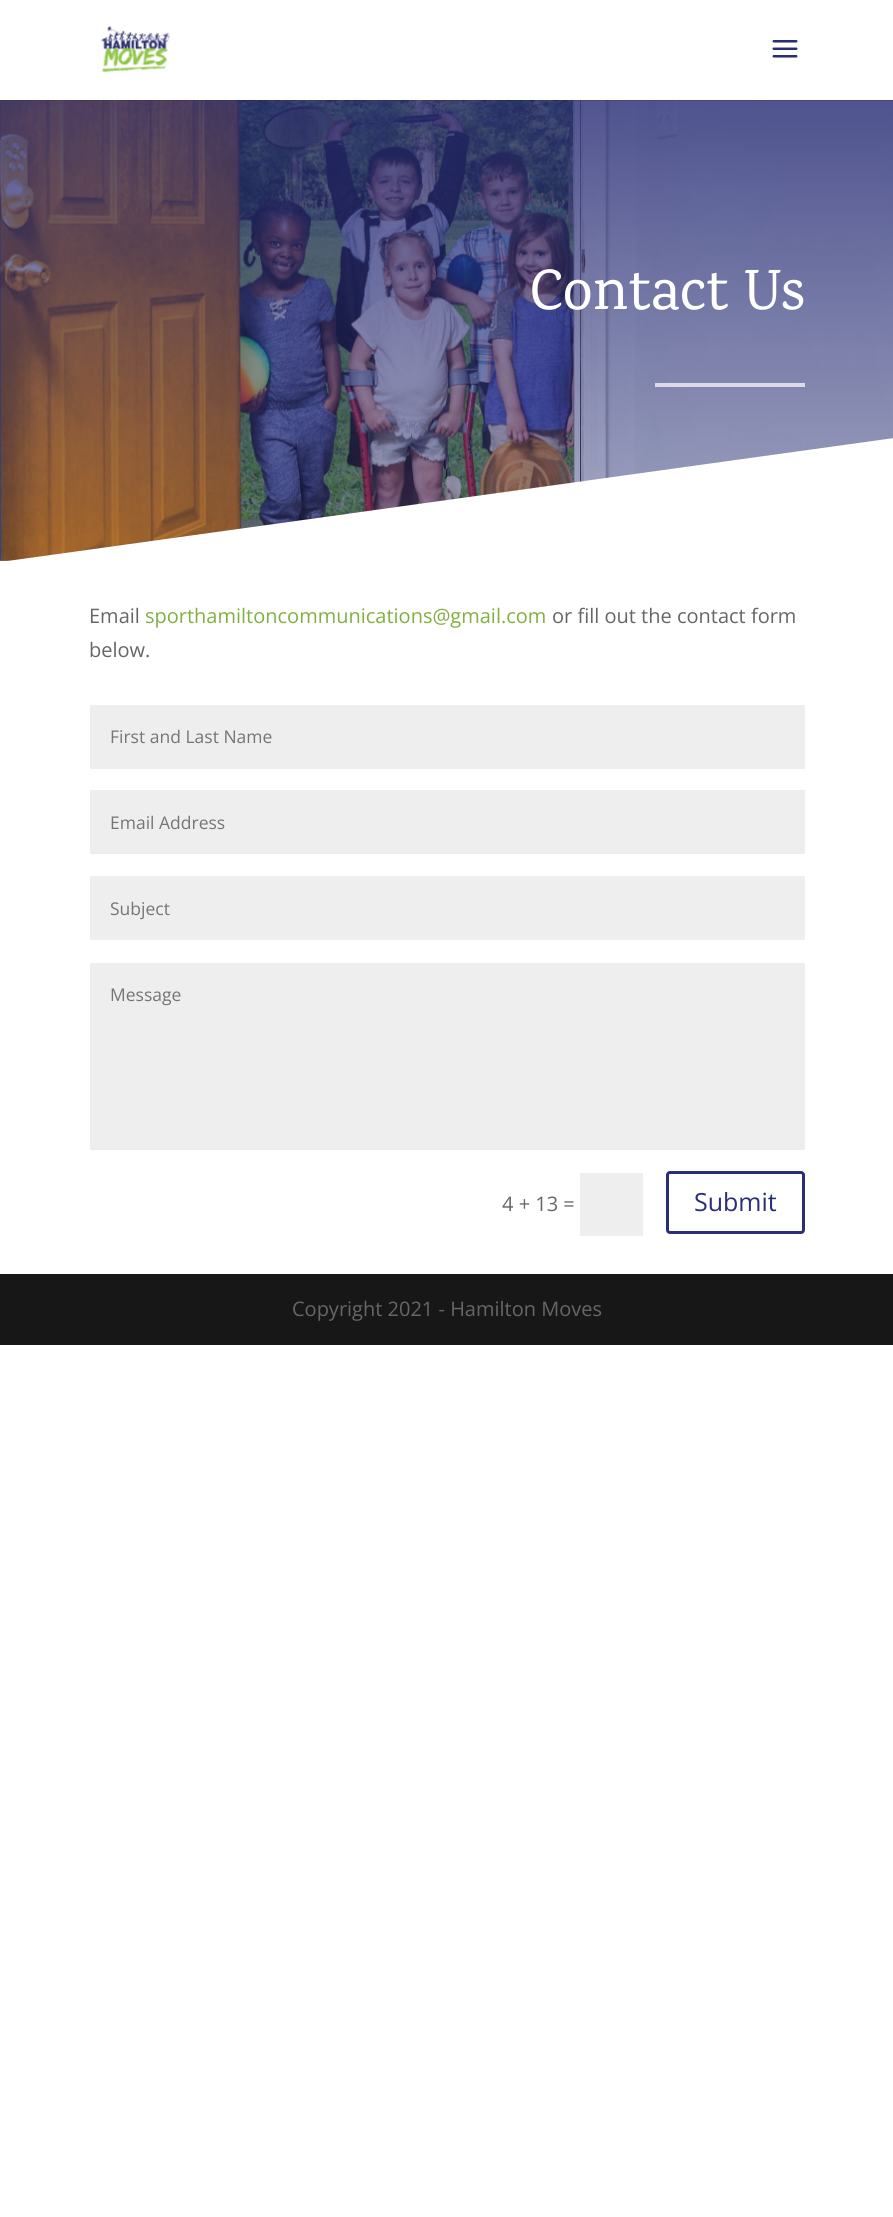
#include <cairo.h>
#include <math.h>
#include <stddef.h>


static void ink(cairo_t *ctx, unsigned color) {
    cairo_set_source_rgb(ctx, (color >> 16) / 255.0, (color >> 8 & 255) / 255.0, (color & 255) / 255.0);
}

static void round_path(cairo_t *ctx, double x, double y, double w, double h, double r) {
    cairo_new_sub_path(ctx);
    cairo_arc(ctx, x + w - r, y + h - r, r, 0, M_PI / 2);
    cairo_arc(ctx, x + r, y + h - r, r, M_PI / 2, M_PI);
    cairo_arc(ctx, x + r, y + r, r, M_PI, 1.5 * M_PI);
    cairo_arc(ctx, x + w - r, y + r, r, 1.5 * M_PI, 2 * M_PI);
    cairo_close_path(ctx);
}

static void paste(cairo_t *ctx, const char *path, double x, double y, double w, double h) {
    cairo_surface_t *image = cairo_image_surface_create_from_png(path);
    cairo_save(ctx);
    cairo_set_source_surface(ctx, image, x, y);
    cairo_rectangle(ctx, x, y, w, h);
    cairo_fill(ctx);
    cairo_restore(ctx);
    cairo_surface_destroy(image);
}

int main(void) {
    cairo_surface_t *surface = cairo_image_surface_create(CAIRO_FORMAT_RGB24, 893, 2217);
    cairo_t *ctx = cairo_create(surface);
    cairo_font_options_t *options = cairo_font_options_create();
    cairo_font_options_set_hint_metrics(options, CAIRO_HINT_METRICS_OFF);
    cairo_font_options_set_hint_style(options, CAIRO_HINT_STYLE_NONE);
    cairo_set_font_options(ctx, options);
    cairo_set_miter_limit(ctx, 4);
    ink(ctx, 0xFFFFFF);
    cairo_paint(ctx);
    paste(ctx, "media/3.png", 0, 100, 893, 461);
    cairo_set_source_rgba(ctx, 0, 0, 0, 0.1);
    cairo_new_path(ctx);
    cairo_move_to(ctx, 0, 100);
    cairo_line_to(ctx, 0, 101);
    cairo_line_to(ctx, 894, 101);
    cairo_line_to(ctx, 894, 1);
    cairo_line_to(ctx, 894, 100);
    cairo_close_path(ctx);
    cairo_fill(ctx);
    paste(ctx, "media/1.png", 100, 25, 70, 48);
    paste(ctx, "media/2.png", 772, 40, 26, 18);
    cairo_select_font_face(ctx, "Karma Medium", CAIRO_FONT_SLANT_NORMAL, CAIRO_FONT_WEIGHT_NORMAL);
    cairo_set_font_size(ctx, 57.5);
    ink(ctx, 0xFFFFFF);
    cairo_move_to(ctx, 530, 309);
    cairo_show_text(ctx, "Contact Us");
    ink(ctx, 0xDADBE7);
    cairo_rectangle(ctx, 655, 383, 150, 4);
    cairo_fill(ctx);
    ink(ctx, 0xFFFFFF);
    cairo_new_path(ctx);
    cairo_move_to(ctx, 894, 438);
    cairo_line_to(ctx, 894, 562);
    cairo_line_to(ctx, 0, 562);
    cairo_close_path(ctx);
    cairo_fill(ctx);
    cairo_select_font_face(ctx, "Open Sans", CAIRO_FONT_SLANT_NORMAL, CAIRO_FONT_WEIGHT_NORMAL);
    cairo_set_font_size(ctx, 20);
    ink(ctx, 0x666666);
    cairo_move_to(ctx, 89, 623);
    cairo_show_text(ctx, "Email");
    ink(ctx, 0x80B140);
    cairo_move_to(ctx, 145, 623);
    cairo_show_text(ctx, "sporthamiltoncommunications@gmail.com");
    ink(ctx, 0x666666);
    cairo_move_to(ctx, 552, 623);
    cairo_show_text(ctx, "or fill out the contact form");
    cairo_move_to(ctx, 89, 657);
    cairo_show_text(ctx, "below.");
    ink(ctx, 0xEEEEEE);
    cairo_rectangle(ctx, 90, 705, 715, 64);
    cairo_fill(ctx);
    cairo_set_font_size(ctx, 17.5);
    ink(ctx, 0x757575);
    cairo_move_to(ctx, 110, 743);
    cairo_show_text(ctx, "First and Last Name");
    ink(ctx, 0xEEEEEE);
    cairo_rectangle(ctx, 90, 790, 715, 64);
    cairo_fill(ctx);
    ink(ctx, 0x757575);
    cairo_move_to(ctx, 110, 829);
    cairo_show_text(ctx, "Email Address");
    ink(ctx, 0xEEEEEE);
    cairo_rectangle(ctx, 90, 876, 715, 64);
    cairo_fill(ctx);
    ink(ctx, 0x757575);
    cairo_move_to(ctx, 110, 915);
    cairo_show_text(ctx, "Subject");
    ink(ctx, 0xEEEEEE);
    cairo_rectangle(ctx, 90, 963, 715, 187);
    cairo_fill(ctx);
    ink(ctx, 0x757575);
    cairo_move_to(ctx, 110, 1001);
    cairo_show_text(ctx, "Message");
    cairo_set_font_size(ctx, 20);
    ink(ctx, 0x666666);
    cairo_move_to(ctx, 502, 1211);
    cairo_show_text(ctx, "4 + 13 =");
    ink(ctx, 0xEEEEEE);
    cairo_rectangle(ctx, 580, 1173, 63, 63);
    cairo_fill(ctx);
    round_path(ctx, 667.5, 1172.5, 136, 60, 2.5);
    ink(ctx, 0x2A2E77);
    cairo_set_line_width(ctx, 3);
    cairo_stroke(ctx);
    cairo_set_font_size(ctx, 25);
    cairo_move_to(ctx, 694, 1211);
    cairo_show_text(ctx, "Submit");
    ink(ctx, 0x171717);
    cairo_rectangle(ctx, 0, 1274, 893, 71);
    cairo_fill(ctx);
    cairo_set_font_size(ctx, 20);
    ink(ctx, 0x666666);
    cairo_move_to(ctx, 292, 1316);
    cairo_show_text(ctx, "Copyright 2021 - Hamilton Moves");
    cairo_surface_write_to_png(surface, "image.png");
    cairo_font_options_destroy(options);
    cairo_destroy(ctx);
    cairo_surface_destroy(surface);
    return 0;
}
